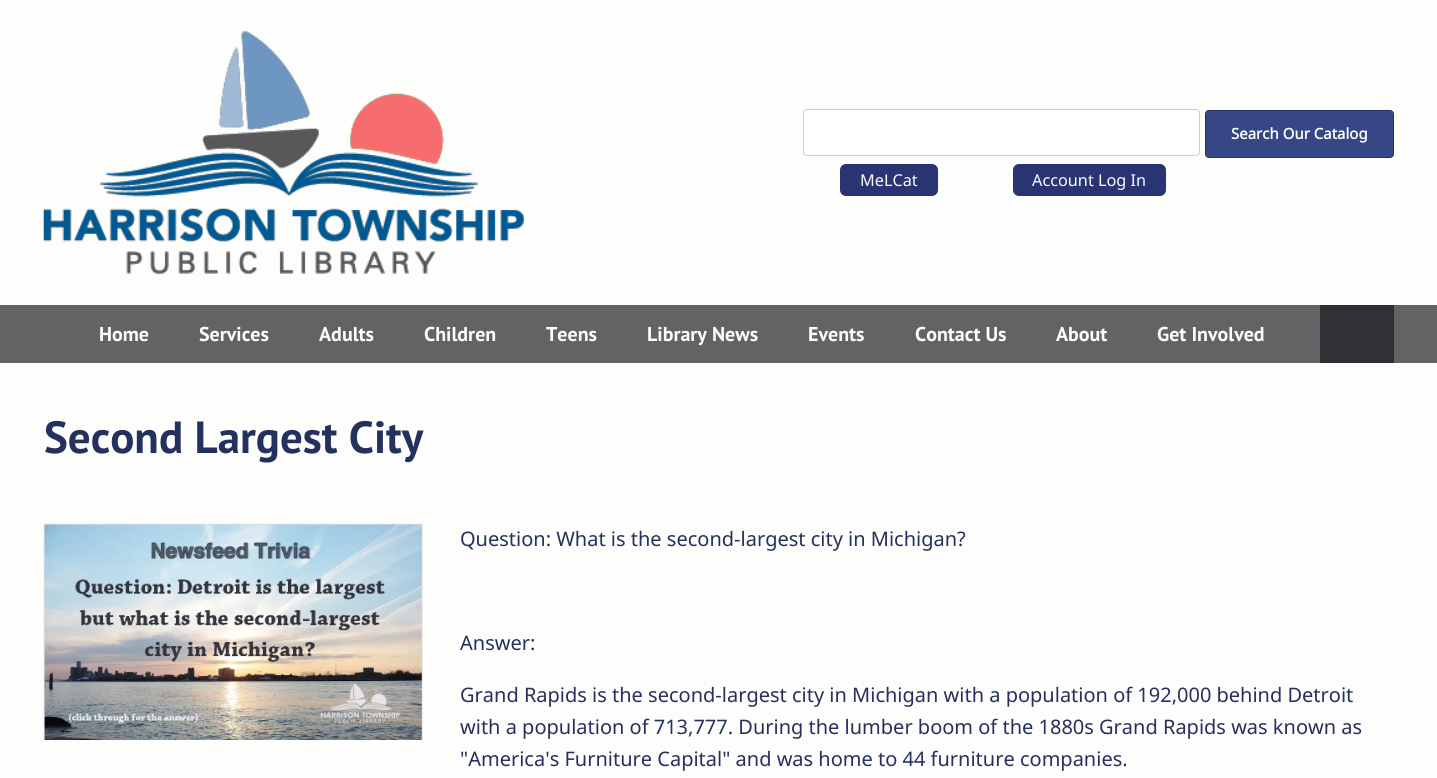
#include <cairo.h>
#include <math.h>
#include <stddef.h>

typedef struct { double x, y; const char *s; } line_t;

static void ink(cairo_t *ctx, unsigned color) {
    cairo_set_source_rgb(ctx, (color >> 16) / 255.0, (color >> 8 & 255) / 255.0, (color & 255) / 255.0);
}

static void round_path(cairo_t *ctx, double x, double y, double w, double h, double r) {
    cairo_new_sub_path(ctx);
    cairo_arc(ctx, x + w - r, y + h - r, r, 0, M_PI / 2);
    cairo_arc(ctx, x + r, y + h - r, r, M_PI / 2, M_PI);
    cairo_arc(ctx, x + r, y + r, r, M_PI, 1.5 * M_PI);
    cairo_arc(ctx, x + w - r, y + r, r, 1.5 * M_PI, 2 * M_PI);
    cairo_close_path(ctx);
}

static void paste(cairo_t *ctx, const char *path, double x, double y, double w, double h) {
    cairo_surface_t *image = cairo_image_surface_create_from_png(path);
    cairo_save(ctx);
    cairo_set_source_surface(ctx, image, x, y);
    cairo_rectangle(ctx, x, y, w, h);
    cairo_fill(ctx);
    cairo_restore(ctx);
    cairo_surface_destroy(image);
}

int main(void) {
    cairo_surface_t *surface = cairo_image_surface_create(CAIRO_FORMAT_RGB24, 1437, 778);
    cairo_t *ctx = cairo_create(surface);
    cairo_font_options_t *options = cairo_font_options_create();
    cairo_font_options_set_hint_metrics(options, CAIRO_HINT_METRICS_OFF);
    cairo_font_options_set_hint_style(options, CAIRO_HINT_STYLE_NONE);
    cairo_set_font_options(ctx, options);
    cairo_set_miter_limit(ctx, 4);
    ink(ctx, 0xFDFEFB);
    cairo_paint(ctx);
    paste(ctx, "media/1.png", 43, 31, 481, 243);
    ink(ctx, 0xFFFFFF);
    round_path(ctx, 803.5, 109.5, 396, 46, 3.5);
    cairo_fill_preserve(ctx);
    ink(ctx, 0xCCCCCC);
    cairo_set_line_width(ctx, 1);
    cairo_stroke(ctx);
    ink(ctx, 0x374785);
    round_path(ctx, 1205.5, 110.5, 188, 47, 3.5);
    cairo_fill_preserve(ctx);
    ink(ctx, 0x24305E);
    cairo_stroke(ctx);
    cairo_select_font_face(ctx, "Noto Sans", CAIRO_FONT_SLANT_NORMAL, CAIRO_FONT_WEIGHT_BOLD);
    cairo_set_font_size(ctx, 15);
    ink(ctx, 0xFDFEFB);
    cairo_move_to(ctx, 1231, 139);
    cairo_show_text(ctx, "Search Our Catalog");
    ink(ctx, 0x2A3472);
    round_path(ctx, 840, 164, 98, 32, 6);
    cairo_fill(ctx);
    cairo_select_font_face(ctx, "Noto Sans", CAIRO_FONT_SLANT_NORMAL, CAIRO_FONT_WEIGHT_NORMAL);
    cairo_set_font_size(ctx, 16.25);
    ink(ctx, 0xFDFEFB);
    cairo_move_to(ctx, 860, 186);
    cairo_show_text(ctx, "MeLCat");
    ink(ctx, 0x2A3472);
    round_path(ctx, 1013, 164, 153, 32, 6);
    cairo_fill(ctx);
    ink(ctx, 0xFDFEFB);
    cairo_move_to(ctx, 1032, 186);
    cairo_show_text(ctx, "Account Log In");
    ink(ctx, 0x626365);
    cairo_rectangle(ctx, 0, 305, 1437, 58);
    cairo_fill(ctx);
    cairo_select_font_face(ctx, "PT Sans", CAIRO_FONT_SLANT_NORMAL, CAIRO_FONT_WEIGHT_BOLD);
    cairo_set_font_size(ctx, 20);
    ink(ctx, 0xFDFEFB);
    {
        static const line_t items[] = {
            {99, 341, "Home"},
            {199, 341, "Services"},
            {319, 341, "Adults"},
            {424, 341, "Children"},
            {546, 341, "Teens"},
            {647, 341, "Library News"},
            {808, 341, "Events"},
            {915, 341, "Contact Us"},
            {1056, 341, "About"},
            {1157, 341, "Get Involved"},
        };
        for (size_t i = 0; i < sizeof items / sizeof *items; i++) {
            cairo_move_to(ctx, items[i].x, items[i].y);
            cairo_show_text(ctx, items[i].s);
        }
    }
    ink(ctx, 0x303134);
    cairo_rectangle(ctx, 1320, 305, 74, 58);
    cairo_fill(ctx);
    cairo_set_font_size(ctx, 45);
    ink(ctx, 0x24305E);
    cairo_move_to(ctx, 44, 453);
    cairo_show_text(ctx, "Second Largest City");
    paste(ctx, "media/2.png", 43, 523, 380, 217);
    cairo_select_font_face(ctx, "Noto Sans", CAIRO_FONT_SLANT_NORMAL, CAIRO_FONT_WEIGHT_NORMAL);
    cairo_set_font_size(ctx, 20);
    {
        static const line_t items[] = {
            {460, 546, "Question: What is the second-largest city in Michigan?"},
            {460, 650, "Answer:"},
            {460, 702, "Grand Rapids is the second-largest city in Michigan with a population of 192,000 behind Detroit"},
            {460, 734, "with a population of 713,777. During the lumber boom of the 1880s Grand Rapids was known as"},
            {460, 766, "\"America's Furniture Capital\" and was home to 44 furniture companies."},
        };
        for (size_t i = 0; i < sizeof items / sizeof *items; i++) {
            cairo_move_to(ctx, items[i].x, items[i].y);
            cairo_show_text(ctx, items[i].s);
        }
    }
    cairo_surface_write_to_png(surface, "image.png");
    cairo_font_options_destroy(options);
    cairo_destroy(ctx);
    cairo_surface_destroy(surface);
    return 0;
}
